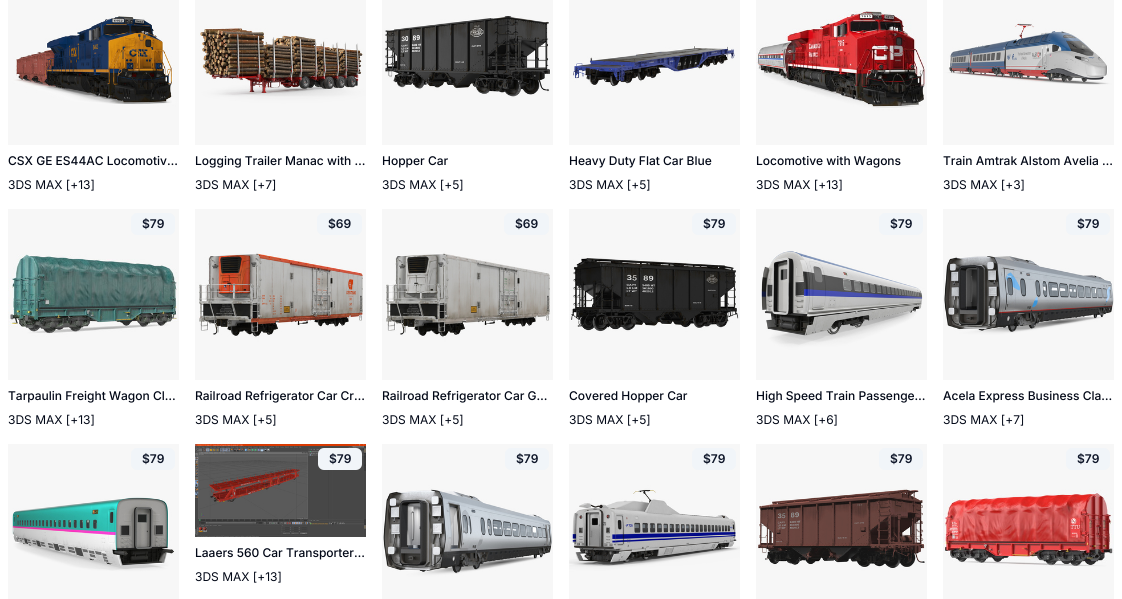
#include <cairo.h>
#include <math.h>
#include <stddef.h>


static void ink(cairo_t *ctx, unsigned color) {
    cairo_set_source_rgb(ctx, (color >> 16) / 255.0, (color >> 8 & 255) / 255.0, (color & 255) / 255.0);
}

static void round_path(cairo_t *ctx, double x, double y, double w, double h, double r) {
    cairo_new_sub_path(ctx);
    cairo_arc(ctx, x + w - r, y + h - r, r, 0, M_PI / 2);
    cairo_arc(ctx, x + r, y + h - r, r, M_PI / 2, M_PI);
    cairo_arc(ctx, x + r, y + r, r, M_PI, 1.5 * M_PI);
    cairo_arc(ctx, x + w - r, y + r, r, 1.5 * M_PI, 2 * M_PI);
    cairo_close_path(ctx);
}

static void paste(cairo_t *ctx, const char *path, double x, double y, double w, double h) {
    cairo_surface_t *image = cairo_image_surface_create_from_png(path);
    cairo_save(ctx);
    cairo_set_source_surface(ctx, image, x, y);
    cairo_rectangle(ctx, x, y, w, h);
    cairo_fill(ctx);
    cairo_restore(ctx);
    cairo_surface_destroy(image);
}

int main(void) {
    cairo_surface_t *surface = cairo_image_surface_create(CAIRO_FORMAT_RGB24, 1122, 599);
    cairo_t *ctx = cairo_create(surface);
    cairo_font_options_t *options = cairo_font_options_create();
    cairo_font_options_set_hint_metrics(options, CAIRO_HINT_METRICS_OFF);
    cairo_font_options_set_hint_style(options, CAIRO_HINT_STYLE_NONE);
    cairo_set_font_options(ctx, options);
    cairo_set_miter_limit(ctx, 4);
    ink(ctx, 0xFFFFFF);
    cairo_paint(ctx);
    paste(ctx, "media/1.png", 8, 0, 171, 145);
    cairo_select_font_face(ctx, "Inter Medium", CAIRO_FONT_SLANT_NORMAL, CAIRO_FONT_WEIGHT_NORMAL);
    cairo_set_font_size(ctx, 12);
    ink(ctx, 0x020817);
    cairo_move_to(ctx, 8, 165);
    cairo_show_text(ctx, "CSX GE ES44AC Locomotiv…");
    cairo_select_font_face(ctx, "Inter", CAIRO_FONT_SLANT_NORMAL, CAIRO_FONT_WEIGHT_NORMAL);
    cairo_move_to(ctx, 8, 189);
    cairo_show_text(ctx, "3DS MAX [+13]");
    paste(ctx, "media/2.png", 195, 0, 171, 145);
    cairo_select_font_face(ctx, "Inter Medium", CAIRO_FONT_SLANT_NORMAL, CAIRO_FONT_WEIGHT_NORMAL);
    cairo_move_to(ctx, 195, 165);
    cairo_show_text(ctx, "Logging Trailer Manac with …");
    cairo_select_font_face(ctx, "Inter", CAIRO_FONT_SLANT_NORMAL, CAIRO_FONT_WEIGHT_NORMAL);
    cairo_move_to(ctx, 195, 189);
    cairo_show_text(ctx, "3DS MAX [+7]");
    paste(ctx, "media/3.png", 382, 0, 171, 145);
    cairo_select_font_face(ctx, "Inter Medium", CAIRO_FONT_SLANT_NORMAL, CAIRO_FONT_WEIGHT_NORMAL);
    cairo_move_to(ctx, 382, 165);
    cairo_show_text(ctx, "Hopper Car");
    cairo_select_font_face(ctx, "Inter", CAIRO_FONT_SLANT_NORMAL, CAIRO_FONT_WEIGHT_NORMAL);
    cairo_move_to(ctx, 382, 189);
    cairo_show_text(ctx, "3DS MAX [+5]");
    paste(ctx, "media/4.png", 569, 0, 171, 145);
    cairo_select_font_face(ctx, "Inter Medium", CAIRO_FONT_SLANT_NORMAL, CAIRO_FONT_WEIGHT_NORMAL);
    cairo_move_to(ctx, 569, 165);
    cairo_show_text(ctx, "Heavy Duty Flat Car Blue");
    cairo_select_font_face(ctx, "Inter", CAIRO_FONT_SLANT_NORMAL, CAIRO_FONT_WEIGHT_NORMAL);
    cairo_move_to(ctx, 569, 189);
    cairo_show_text(ctx, "3DS MAX [+5]");
    paste(ctx, "media/5.png", 756, 0, 171, 145);
    cairo_select_font_face(ctx, "Inter Medium", CAIRO_FONT_SLANT_NORMAL, CAIRO_FONT_WEIGHT_NORMAL);
    cairo_move_to(ctx, 756, 165);
    cairo_show_text(ctx, "Locomotive with Wagons");
    cairo_select_font_face(ctx, "Inter", CAIRO_FONT_SLANT_NORMAL, CAIRO_FONT_WEIGHT_NORMAL);
    cairo_move_to(ctx, 756, 189);
    cairo_show_text(ctx, "3DS MAX [+13]");
    paste(ctx, "media/6.png", 943, 0, 171, 145);
    cairo_select_font_face(ctx, "Inter Medium", CAIRO_FONT_SLANT_NORMAL, CAIRO_FONT_WEIGHT_NORMAL);
    cairo_move_to(ctx, 943, 165);
    cairo_show_text(ctx, "Train Amtrak Alstom Avelia …");
    cairo_select_font_face(ctx, "Inter", CAIRO_FONT_SLANT_NORMAL, CAIRO_FONT_WEIGHT_NORMAL);
    cairo_move_to(ctx, 943, 189);
    cairo_show_text(ctx, "3DS MAX [+3]");
    paste(ctx, "media/7.png", 8, 209, 171, 171);
    ink(ctx, 0xF1F5F9);
    round_path(ctx, 131, 213, 44, 22, 6);
    cairo_fill(ctx);
    cairo_select_font_face(ctx, "Inter SemiBold", CAIRO_FONT_SLANT_NORMAL, CAIRO_FONT_WEIGHT_NORMAL);
    ink(ctx, 0x0F172A);
    cairo_move_to(ctx, 142, 228);
    cairo_show_text(ctx, "$79");
    cairo_select_font_face(ctx, "Inter Medium", CAIRO_FONT_SLANT_NORMAL, CAIRO_FONT_WEIGHT_NORMAL);
    ink(ctx, 0x020817);
    cairo_move_to(ctx, 8, 400);
    cairo_show_text(ctx, "Tarpaulin Freight Wagon Cl…");
    cairo_select_font_face(ctx, "Inter", CAIRO_FONT_SLANT_NORMAL, CAIRO_FONT_WEIGHT_NORMAL);
    cairo_move_to(ctx, 8, 424);
    cairo_show_text(ctx, "3DS MAX [+13]");
    paste(ctx, "media/8.png", 195, 209, 171, 171);
    ink(ctx, 0xF1F5F9);
    round_path(ctx, 317, 213, 45, 22, 6);
    cairo_fill(ctx);
    cairo_select_font_face(ctx, "Inter SemiBold", CAIRO_FONT_SLANT_NORMAL, CAIRO_FONT_WEIGHT_NORMAL);
    ink(ctx, 0x0F172A);
    cairo_move_to(ctx, 328, 228);
    cairo_show_text(ctx, "$69");
    cairo_select_font_face(ctx, "Inter Medium", CAIRO_FONT_SLANT_NORMAL, CAIRO_FONT_WEIGHT_NORMAL);
    ink(ctx, 0x020817);
    cairo_move_to(ctx, 195, 400);
    cairo_show_text(ctx, "Railroad Refrigerator Car Cr…");
    cairo_select_font_face(ctx, "Inter", CAIRO_FONT_SLANT_NORMAL, CAIRO_FONT_WEIGHT_NORMAL);
    cairo_move_to(ctx, 195, 424);
    cairo_show_text(ctx, "3DS MAX [+5]");
    paste(ctx, "media/9.png", 382, 209, 171, 171);
    ink(ctx, 0xF1F5F9);
    round_path(ctx, 504, 213, 45, 22, 6);
    cairo_fill(ctx);
    cairo_select_font_face(ctx, "Inter SemiBold", CAIRO_FONT_SLANT_NORMAL, CAIRO_FONT_WEIGHT_NORMAL);
    ink(ctx, 0x0F172A);
    cairo_move_to(ctx, 515, 228);
    cairo_show_text(ctx, "$69");
    cairo_select_font_face(ctx, "Inter Medium", CAIRO_FONT_SLANT_NORMAL, CAIRO_FONT_WEIGHT_NORMAL);
    ink(ctx, 0x020817);
    cairo_move_to(ctx, 382, 400);
    cairo_show_text(ctx, "Railroad Refrigerator Car G…");
    cairo_select_font_face(ctx, "Inter", CAIRO_FONT_SLANT_NORMAL, CAIRO_FONT_WEIGHT_NORMAL);
    cairo_move_to(ctx, 382, 424);
    cairo_show_text(ctx, "3DS MAX [+5]");
    paste(ctx, "media/10.png", 569, 209, 171, 171);
    ink(ctx, 0xF1F5F9);
    round_path(ctx, 692, 213, 44, 22, 6);
    cairo_fill(ctx);
    cairo_select_font_face(ctx, "Inter SemiBold", CAIRO_FONT_SLANT_NORMAL, CAIRO_FONT_WEIGHT_NORMAL);
    ink(ctx, 0x0F172A);
    cairo_move_to(ctx, 703, 228);
    cairo_show_text(ctx, "$79");
    cairo_select_font_face(ctx, "Inter Medium", CAIRO_FONT_SLANT_NORMAL, CAIRO_FONT_WEIGHT_NORMAL);
    ink(ctx, 0x020817);
    cairo_move_to(ctx, 569, 400);
    cairo_show_text(ctx, "Covered Hopper Car");
    cairo_select_font_face(ctx, "Inter", CAIRO_FONT_SLANT_NORMAL, CAIRO_FONT_WEIGHT_NORMAL);
    cairo_move_to(ctx, 569, 424);
    cairo_show_text(ctx, "3DS MAX [+5]");
    paste(ctx, "media/11.png", 756, 209, 171, 171);
    ink(ctx, 0xF1F5F9);
    round_path(ctx, 879, 213, 44, 22, 6);
    cairo_fill(ctx);
    cairo_select_font_face(ctx, "Inter SemiBold", CAIRO_FONT_SLANT_NORMAL, CAIRO_FONT_WEIGHT_NORMAL);
    ink(ctx, 0x0F172A);
    cairo_move_to(ctx, 890, 228);
    cairo_show_text(ctx, "$79");
    cairo_select_font_face(ctx, "Inter Medium", CAIRO_FONT_SLANT_NORMAL, CAIRO_FONT_WEIGHT_NORMAL);
    ink(ctx, 0x020817);
    cairo_move_to(ctx, 756, 400);
    cairo_show_text(ctx, "High Speed Train Passenge…");
    cairo_select_font_face(ctx, "Inter", CAIRO_FONT_SLANT_NORMAL, CAIRO_FONT_WEIGHT_NORMAL);
    cairo_move_to(ctx, 756, 424);
    cairo_show_text(ctx, "3DS MAX [+6]");
    paste(ctx, "media/12.png", 943, 209, 171, 171);
    ink(ctx, 0xF1F5F9);
    round_path(ctx, 1066, 213, 44, 22, 6);
    cairo_fill(ctx);
    cairo_select_font_face(ctx, "Inter SemiBold", CAIRO_FONT_SLANT_NORMAL, CAIRO_FONT_WEIGHT_NORMAL);
    ink(ctx, 0x0F172A);
    cairo_move_to(ctx, 1077, 228);
    cairo_show_text(ctx, "$79");
    cairo_select_font_face(ctx, "Inter Medium", CAIRO_FONT_SLANT_NORMAL, CAIRO_FONT_WEIGHT_NORMAL);
    ink(ctx, 0x020817);
    cairo_move_to(ctx, 943, 400);
    cairo_show_text(ctx, "Acela Express Business Cla…");
    cairo_select_font_face(ctx, "Inter", CAIRO_FONT_SLANT_NORMAL, CAIRO_FONT_WEIGHT_NORMAL);
    cairo_move_to(ctx, 943, 424);
    cairo_show_text(ctx, "3DS MAX [+7]");
    paste(ctx, "media/13.png", 8, 444, 171, 155);
    ink(ctx, 0xF1F5F9);
    round_path(ctx, 131, 448, 44, 22, 6);
    cairo_fill(ctx);
    cairo_select_font_face(ctx, "Inter SemiBold", CAIRO_FONT_SLANT_NORMAL, CAIRO_FONT_WEIGHT_NORMAL);
    ink(ctx, 0x0F172A);
    cairo_move_to(ctx, 142, 463);
    cairo_show_text(ctx, "$79");
    paste(ctx, "media/14.png", 195, 444, 171, 93);
    ink(ctx, 0xF1F5F9);
    round_path(ctx, 318, 448, 44, 22, 6);
    cairo_fill(ctx);
    ink(ctx, 0x0F172A);
    cairo_move_to(ctx, 329, 463);
    cairo_show_text(ctx, "$79");
    cairo_select_font_face(ctx, "Inter Medium", CAIRO_FONT_SLANT_NORMAL, CAIRO_FONT_WEIGHT_NORMAL);
    ink(ctx, 0x020817);
    cairo_move_to(ctx, 195, 557);
    cairo_show_text(ctx, "Laaers 560 Car Transporter…");
    cairo_select_font_face(ctx, "Inter", CAIRO_FONT_SLANT_NORMAL, CAIRO_FONT_WEIGHT_NORMAL);
    cairo_move_to(ctx, 195, 581);
    cairo_show_text(ctx, "3DS MAX [+13]");
    paste(ctx, "media/15.png", 382, 444, 171, 155);
    ink(ctx, 0xF1F5F9);
    round_path(ctx, 505, 448, 44, 22, 6);
    cairo_fill(ctx);
    cairo_select_font_face(ctx, "Inter SemiBold", CAIRO_FONT_SLANT_NORMAL, CAIRO_FONT_WEIGHT_NORMAL);
    ink(ctx, 0x0F172A);
    cairo_move_to(ctx, 516, 463);
    cairo_show_text(ctx, "$79");
    paste(ctx, "media/16.png", 569, 444, 171, 155);
    ink(ctx, 0xF1F5F9);
    round_path(ctx, 692, 448, 44, 22, 6);
    cairo_fill(ctx);
    ink(ctx, 0x0F172A);
    cairo_move_to(ctx, 703, 463);
    cairo_show_text(ctx, "$79");
    paste(ctx, "media/17.png", 756, 444, 171, 155);
    ink(ctx, 0xF1F5F9);
    round_path(ctx, 879, 448, 44, 22, 6);
    cairo_fill(ctx);
    ink(ctx, 0x0F172A);
    cairo_move_to(ctx, 890, 463);
    cairo_show_text(ctx, "$79");
    paste(ctx, "media/18.png", 943, 444, 171, 155);
    ink(ctx, 0xF1F5F9);
    round_path(ctx, 1066, 448, 44, 22, 6);
    cairo_fill(ctx);
    ink(ctx, 0x0F172A);
    cairo_move_to(ctx, 1077, 463);
    cairo_show_text(ctx, "$79");
    cairo_surface_write_to_png(surface, "image.png");
    cairo_font_options_destroy(options);
    cairo_destroy(ctx);
    cairo_surface_destroy(surface);
    return 0;
}
